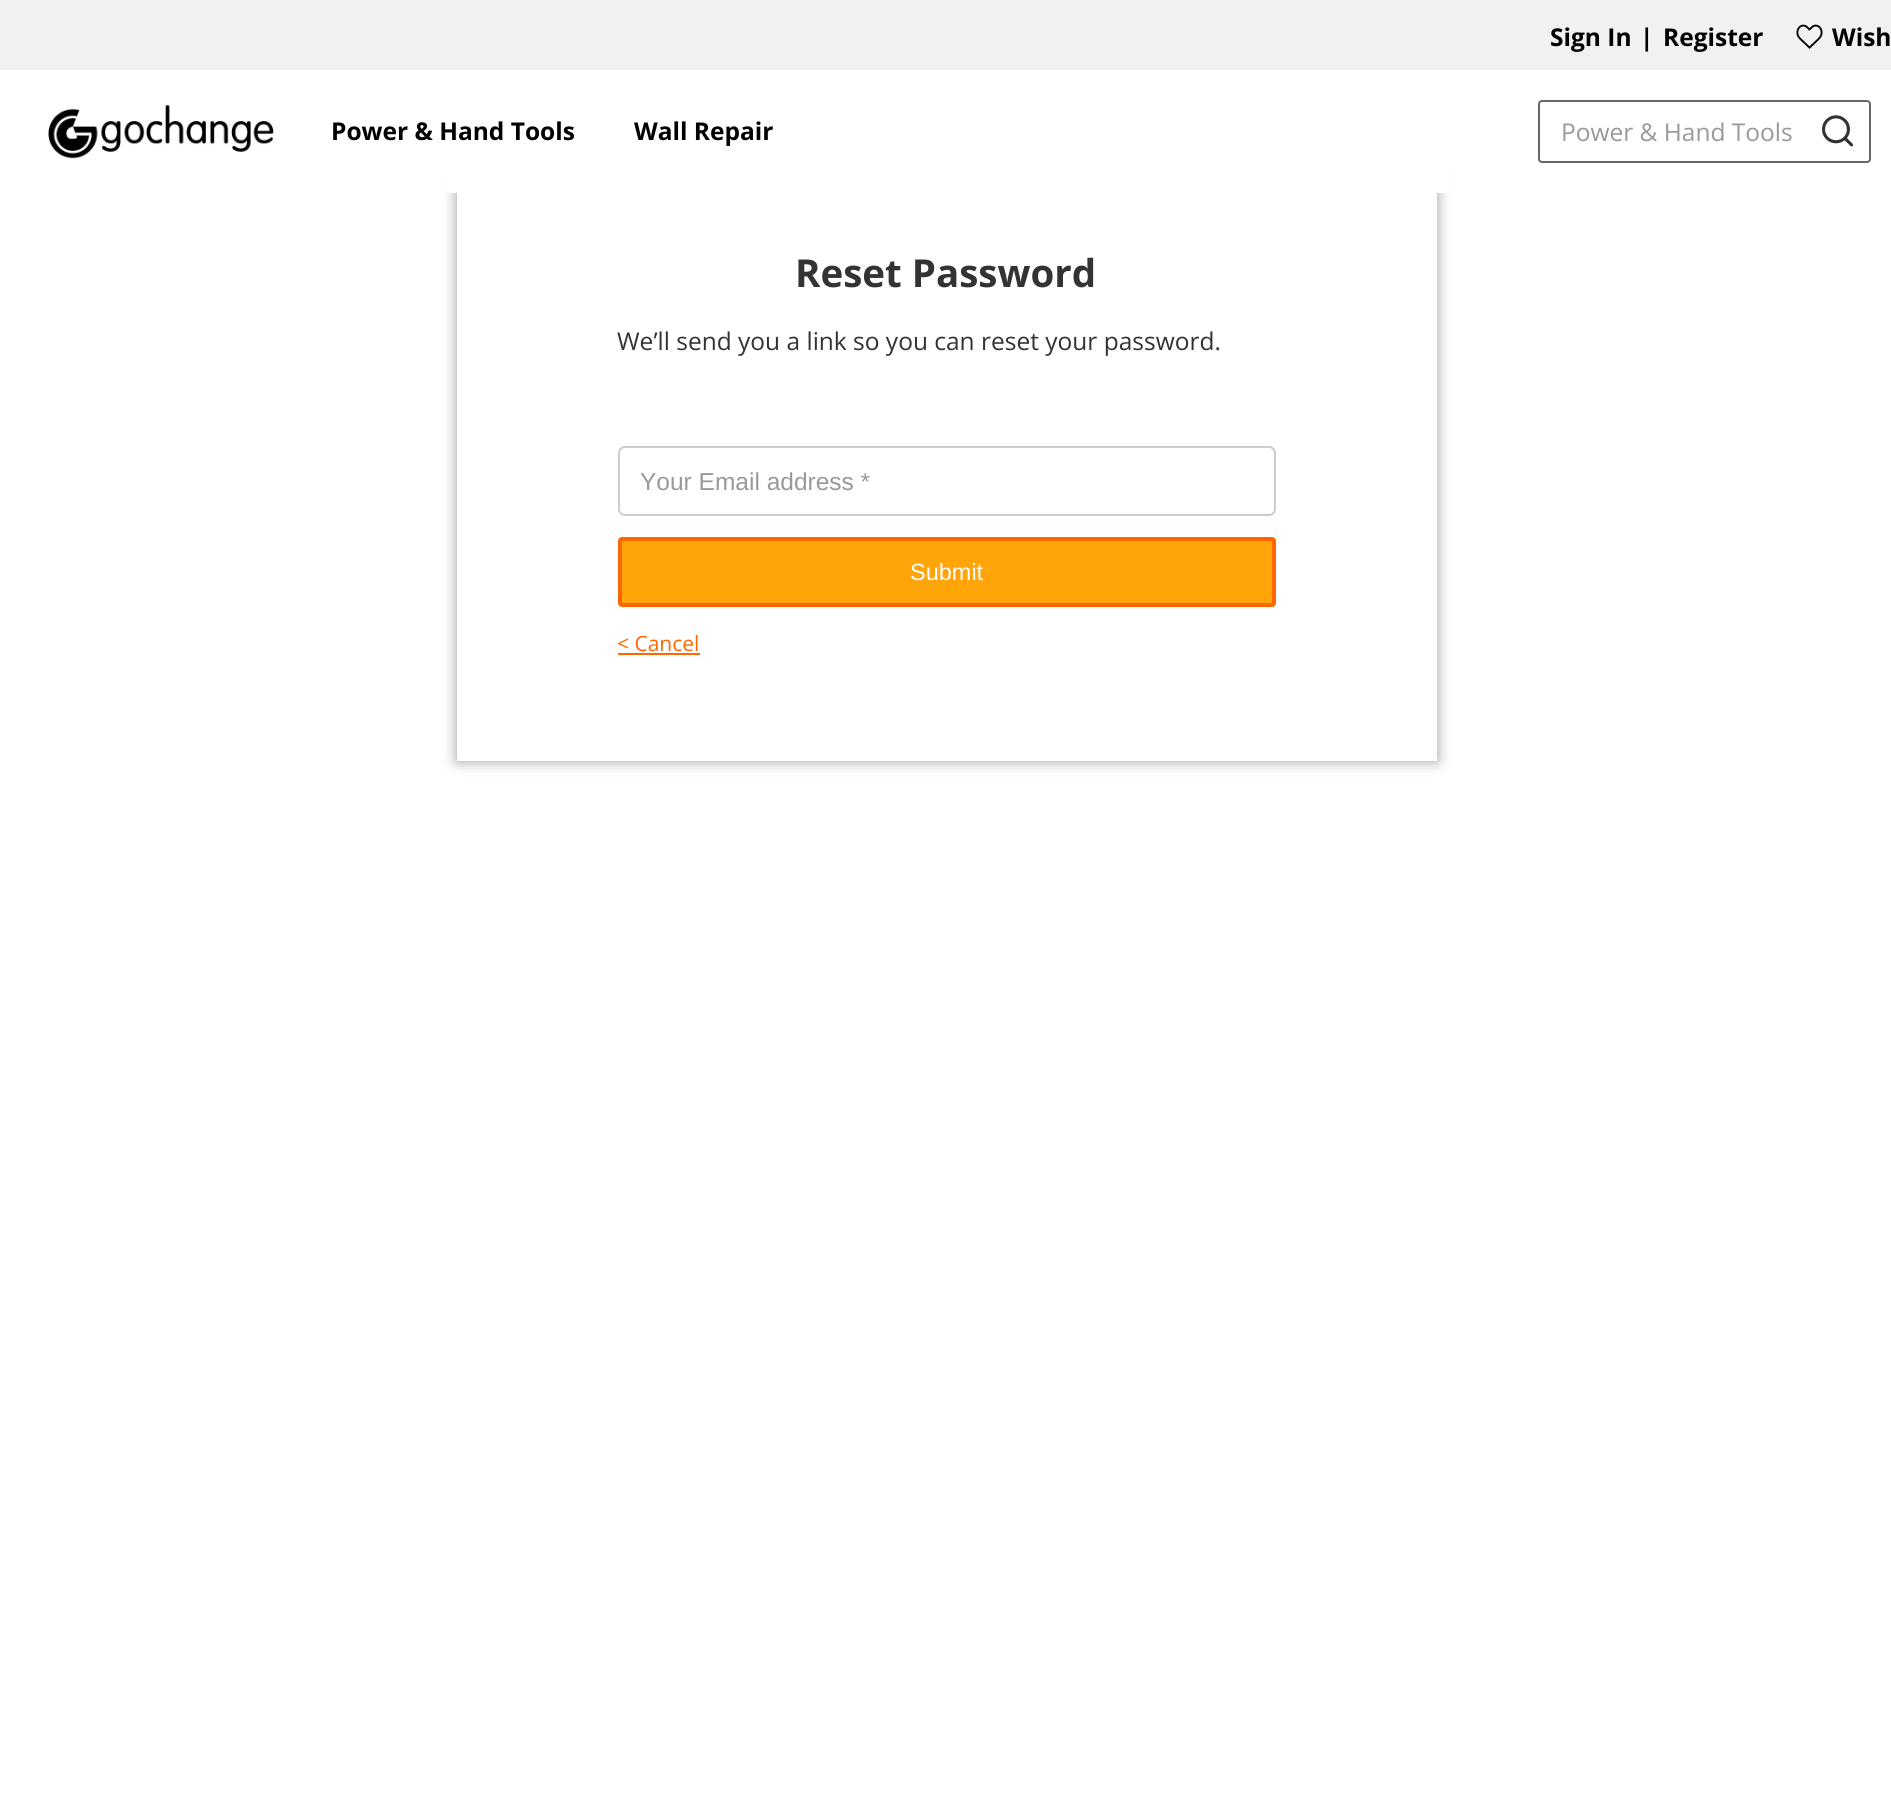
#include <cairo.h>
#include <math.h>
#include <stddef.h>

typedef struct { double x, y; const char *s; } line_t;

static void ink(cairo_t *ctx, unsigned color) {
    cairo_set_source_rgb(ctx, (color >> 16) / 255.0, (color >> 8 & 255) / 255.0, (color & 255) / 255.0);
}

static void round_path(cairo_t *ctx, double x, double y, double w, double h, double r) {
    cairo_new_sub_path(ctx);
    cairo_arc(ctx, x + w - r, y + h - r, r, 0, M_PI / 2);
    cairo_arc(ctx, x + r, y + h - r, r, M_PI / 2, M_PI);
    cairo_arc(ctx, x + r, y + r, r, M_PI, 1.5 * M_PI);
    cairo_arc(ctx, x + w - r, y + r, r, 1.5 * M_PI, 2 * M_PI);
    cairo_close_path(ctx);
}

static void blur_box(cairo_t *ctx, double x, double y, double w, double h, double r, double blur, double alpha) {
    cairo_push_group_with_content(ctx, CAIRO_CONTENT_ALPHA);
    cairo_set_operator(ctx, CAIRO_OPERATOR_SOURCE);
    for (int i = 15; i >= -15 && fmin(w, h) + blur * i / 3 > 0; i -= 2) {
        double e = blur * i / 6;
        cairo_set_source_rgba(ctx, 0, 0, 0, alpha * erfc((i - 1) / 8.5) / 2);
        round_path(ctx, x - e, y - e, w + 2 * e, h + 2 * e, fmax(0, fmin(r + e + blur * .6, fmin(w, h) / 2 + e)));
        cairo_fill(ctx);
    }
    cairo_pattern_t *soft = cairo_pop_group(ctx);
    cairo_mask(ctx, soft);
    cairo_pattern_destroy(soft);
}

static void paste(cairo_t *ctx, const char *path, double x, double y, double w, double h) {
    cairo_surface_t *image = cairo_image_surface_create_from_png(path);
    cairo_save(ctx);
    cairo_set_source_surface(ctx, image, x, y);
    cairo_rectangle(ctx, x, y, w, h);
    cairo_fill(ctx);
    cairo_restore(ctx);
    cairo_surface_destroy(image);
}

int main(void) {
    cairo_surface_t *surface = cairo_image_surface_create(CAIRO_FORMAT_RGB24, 1891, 1798);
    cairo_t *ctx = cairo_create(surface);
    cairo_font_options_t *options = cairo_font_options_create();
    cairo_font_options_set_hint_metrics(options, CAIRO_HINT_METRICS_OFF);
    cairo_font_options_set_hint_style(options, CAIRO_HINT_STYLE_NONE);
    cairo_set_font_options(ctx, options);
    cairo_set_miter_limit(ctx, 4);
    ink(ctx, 0xFFFFFF);
    cairo_paint(ctx);
    ink(ctx, 0x000000);
    blur_box(ctx, 457, 175, 980, 586, 0, 7, 0.4);
    ink(ctx, 0xFFFFFF);
    cairo_rectangle(ctx, 443, 161, 1008, 32);
    cairo_fill(ctx);
    ink(ctx, 0xF1F1F1);
    cairo_rectangle(ctx, 0, 0, 1891, 70);
    cairo_fill(ctx);
    cairo_select_font_face(ctx, "Open Sans", CAIRO_FONT_SLANT_NORMAL, CAIRO_FONT_WEIGHT_BOLD);
    cairo_set_font_size(ctx, 24.5);
    ink(ctx, 0x000000);
    {
        static const line_t items[] = {
            {1550, 46, "Sign In"},
            {1640, 46, "|"},
            {1663, 46, "Register"},
        };
        for (size_t i = 0; i < sizeof items / sizeof *items; i++) {
            cairo_move_to(ctx, items[i].x, items[i].y);
            cairo_show_text(ctx, items[i].s);
        }
    }
    paste(ctx, "media/1.png", 1796, 24, 27, 25);
    cairo_move_to(ctx, 1832, 46);
    cairo_show_text(ctx, "Wish");
    paste(ctx, "media/2.png", 48, 105, 226, 54);
    cairo_move_to(ctx, 331, 140);
    cairo_show_text(ctx, "Power & Hand Tools");
    cairo_move_to(ctx, 634, 140);
    cairo_show_text(ctx, "Wall Repair");
    round_path(ctx, 1539, 101, 331, 61, 3);
    ink(ctx, 0x666666);
    cairo_stroke(ctx);
    cairo_select_font_face(ctx, "Open Sans", CAIRO_FONT_SLANT_NORMAL, CAIRO_FONT_WEIGHT_NORMAL);
    ink(ctx, 0x999999);
    cairo_move_to(ctx, 1561, 141);
    cairo_show_text(ctx, "Power & Hand Tools");
    paste(ctx, "media/3.png", 1821, 115, 33, 32);
    ink(ctx, 0xFFFFFF);
    cairo_rectangle(ctx, 457, 193, 980, 568);
    cairo_fill(ctx);
    cairo_select_font_face(ctx, "Open Sans", CAIRO_FONT_SLANT_NORMAL, CAIRO_FONT_WEIGHT_BOLD);
    cairo_set_font_size(ctx, 38.5);
    ink(ctx, 0x333333);
    cairo_move_to(ctx, 795, 287);
    cairo_show_text(ctx, "Reset Password");
    cairo_select_font_face(ctx, "Open Sans", CAIRO_FONT_SLANT_NORMAL, CAIRO_FONT_WEIGHT_NORMAL);
    cairo_set_font_size(ctx, 24.5);
    cairo_move_to(ctx, 617, 350);
    cairo_show_text(ctx, "We’ll send you a link so you can reset your password.");
    round_path(ctx, 619, 447, 656, 68, 6);
    ink(ctx, 0xCCCCCC);
    cairo_stroke(ctx);
    cairo_select_font_face(ctx, "Liberation Sans", CAIRO_FONT_SLANT_NORMAL, CAIRO_FONT_WEIGHT_NORMAL);
    ink(ctx, 0x999999);
    cairo_move_to(ctx, 640, 490);
    cairo_show_text(ctx, "Your Email address *");
    ink(ctx, 0xFFA409);
    round_path(ctx, 620, 539, 654, 66, 2);
    cairo_fill_preserve(ctx);
    ink(ctx, 0xFF6600);
    cairo_set_line_width(ctx, 4);
    cairo_stroke(ctx);
    cairo_set_font_size(ctx, 23.5);
    ink(ctx, 0xFFFFFF);
    cairo_move_to(ctx, 910, 580);
    cairo_show_text(ctx, "Submit");
    cairo_select_font_face(ctx, "Open Sans", CAIRO_FONT_SLANT_NORMAL, CAIRO_FONT_WEIGHT_NORMAL);
    cairo_set_font_size(ctx, 21);
    ink(ctx, 0xFF6600);
    cairo_move_to(ctx, 617, 651);
    cairo_show_text(ctx, "< Cancel");
    cairo_rectangle(ctx, 618, 653, 82, 2);
    cairo_fill(ctx);
    cairo_surface_write_to_png(surface, "image.png");
    cairo_font_options_destroy(options);
    cairo_destroy(ctx);
    cairo_surface_destroy(surface);
    return 0;
}
